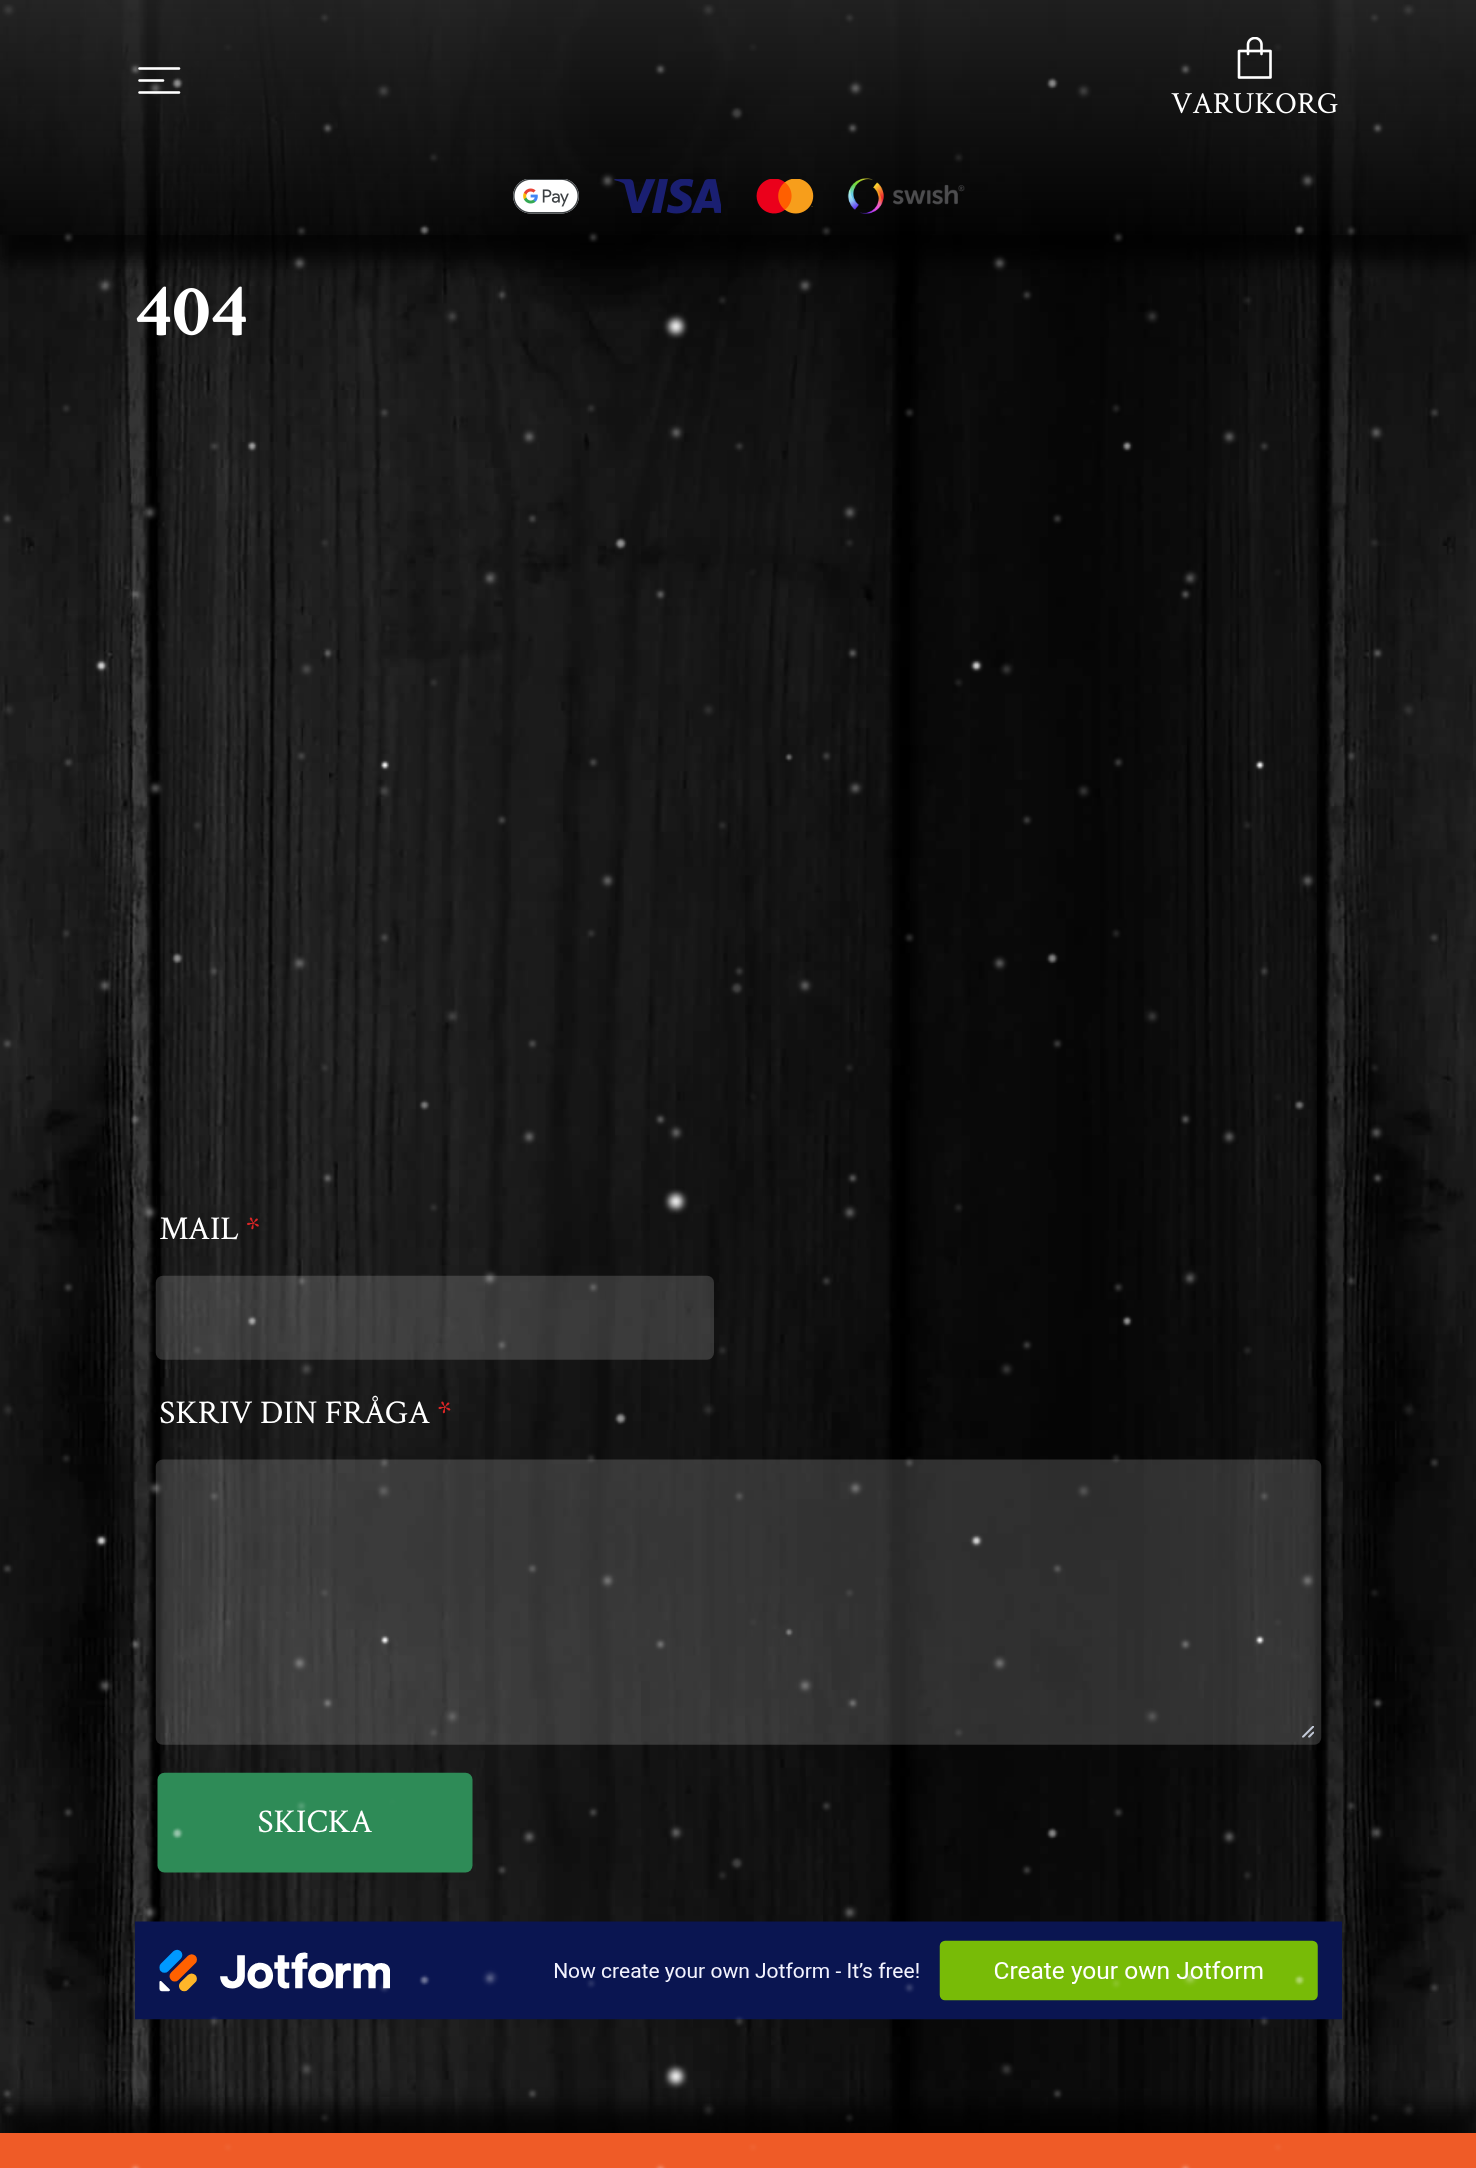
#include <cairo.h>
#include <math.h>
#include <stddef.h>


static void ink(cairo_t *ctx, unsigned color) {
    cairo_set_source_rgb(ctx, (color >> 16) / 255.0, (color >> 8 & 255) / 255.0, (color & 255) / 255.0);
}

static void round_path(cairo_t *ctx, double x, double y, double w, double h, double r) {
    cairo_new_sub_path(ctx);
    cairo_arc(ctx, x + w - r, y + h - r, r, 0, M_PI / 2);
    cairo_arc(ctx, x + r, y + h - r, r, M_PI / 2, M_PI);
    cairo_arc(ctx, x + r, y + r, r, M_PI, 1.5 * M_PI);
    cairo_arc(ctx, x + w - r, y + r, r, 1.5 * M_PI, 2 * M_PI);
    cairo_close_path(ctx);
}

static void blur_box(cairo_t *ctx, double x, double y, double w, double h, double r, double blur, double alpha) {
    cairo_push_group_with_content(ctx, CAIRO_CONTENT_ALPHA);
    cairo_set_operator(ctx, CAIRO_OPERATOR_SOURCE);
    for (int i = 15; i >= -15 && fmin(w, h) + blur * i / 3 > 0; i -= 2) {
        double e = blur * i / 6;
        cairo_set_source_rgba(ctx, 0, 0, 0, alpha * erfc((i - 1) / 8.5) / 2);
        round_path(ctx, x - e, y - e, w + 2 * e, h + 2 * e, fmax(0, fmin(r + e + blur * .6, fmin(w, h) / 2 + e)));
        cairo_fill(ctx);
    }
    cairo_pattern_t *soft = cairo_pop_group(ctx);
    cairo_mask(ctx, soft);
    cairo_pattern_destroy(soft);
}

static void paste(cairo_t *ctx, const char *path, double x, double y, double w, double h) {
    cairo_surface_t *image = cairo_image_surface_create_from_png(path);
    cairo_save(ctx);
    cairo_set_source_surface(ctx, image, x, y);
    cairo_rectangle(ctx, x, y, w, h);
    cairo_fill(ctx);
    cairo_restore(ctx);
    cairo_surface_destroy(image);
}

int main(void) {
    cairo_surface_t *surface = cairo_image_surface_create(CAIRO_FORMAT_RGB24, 1476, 2168);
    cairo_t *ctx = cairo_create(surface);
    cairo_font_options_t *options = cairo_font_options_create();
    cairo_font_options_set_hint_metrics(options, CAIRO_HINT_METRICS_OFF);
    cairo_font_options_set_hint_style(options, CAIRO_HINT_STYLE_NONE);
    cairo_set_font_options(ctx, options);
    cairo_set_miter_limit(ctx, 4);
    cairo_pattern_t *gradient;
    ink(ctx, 0xFFFFFF);
    cairo_paint(ctx);
    paste(ctx, "media/1.png", 0, 0, 1476, 2133);
    cairo_save(ctx);
    cairo_set_fill_rule(ctx, CAIRO_FILL_RULE_EVEN_ODD);
    cairo_new_path(ctx);
    cairo_move_to(ctx, 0, 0);
    cairo_line_to(ctx, 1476, 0);
    cairo_line_to(ctx, 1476, 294);
    cairo_line_to(ctx, 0, 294);
    cairo_close_path(ctx);
    cairo_move_to(ctx, 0, 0);
    cairo_line_to(ctx, 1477, 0);
    cairo_line_to(ctx, 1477, 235);
    cairo_line_to(ctx, 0, 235);
    cairo_close_path(ctx);
    cairo_clip(ctx);
    ink(ctx, 0x000000);
    blur_box(ctx, 0, 26, 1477, 235, 0, 10.5, 0.8);
    cairo_restore(ctx);
    gradient = cairo_pattern_create_linear(739, 0, 739, 235);
    cairo_pattern_add_color_stop_rgba(gradient, 0, 0.196, 0.196, 0.196, 0.6);
    cairo_pattern_add_color_stop_rgba(gradient, 1, 0, 0, 0, 0.6);
    cairo_set_source(ctx, gradient);
    cairo_pattern_destroy(gradient);
    cairo_rectangle(ctx, 0, 0, 1476, 235);
    cairo_fill(ctx);
    cairo_new_path(ctx);
    cairo_move_to(ctx, 139.5, 68.5);
    cairo_line_to(ctx, 179, 68.5);
    cairo_move_to(ctx, 139.5, 80.5);
    cairo_line_to(ctx, 163, 80.5);
    cairo_move_to(ctx, 139.5, 92.5);
    cairo_line_to(ctx, 179, 92.5);
    ink(ctx, 0xFFFFFF);
    cairo_set_line_width(ctx, 2.6);
    cairo_set_line_cap(ctx, CAIRO_LINE_CAP_ROUND);
    cairo_set_line_join(ctx, CAIRO_LINE_JOIN_ROUND);
    cairo_stroke(ctx);
    cairo_new_path(ctx);
    cairo_move_to(ctx, 1239, 51);
    cairo_line_to(ctx, 1270.5, 51);
    cairo_line_to(ctx, 1270.5, 77.5);
    cairo_line_to(ctx, 1239, 77.5);
    cairo_close_path(ctx);
    cairo_stroke(ctx);
    cairo_save(ctx);
    cairo_rectangle(ctx, 1234, 37, 42, 42);
    cairo_clip(ctx);
    cairo_new_path(ctx);
    cairo_move_to(ctx, 1248, 54);
    cairo_line_to(ctx, 1248, 44.5);
    cairo_curve_to(ctx, 1248, 41, 1251, 38, 1255, 38);
    cairo_curve_to(ctx, 1258.5, 38, 1261.5, 41, 1261.5, 44.5);
    cairo_line_to(ctx, 1261.5, 54);
    cairo_stroke(ctx);
    cairo_restore(ctx);
    cairo_select_font_face(ctx, "Crimson Text", CAIRO_FONT_SLANT_NORMAL, CAIRO_FONT_WEIGHT_NORMAL);
    cairo_set_font_size(ctx, 30.75);
    cairo_move_to(ctx, 1171, 113);
    cairo_show_text(ctx, "VARUKORG");
    paste(ctx, "media/3.png", 513, 179, 66, 35);
    paste(ctx, "media/4.png", 614, 179, 107, 35);
    paste(ctx, "media/5.png", 756, 179, 58, 35);
    paste(ctx, "media/6.png", 847, 178, 118, 36);
    cairo_select_font_face(ctx, "Crimson Text", CAIRO_FONT_SLANT_NORMAL, CAIRO_FONT_WEIGHT_BOLD);
    cairo_set_font_size(ctx, 77);
    cairo_move_to(ctx, 135, 335);
    cairo_show_text(ctx, "404");
    paste(ctx, "media/7.png", 134, 1217, 1208, 803);
    ink(ctx, 0x000000);
    blur_box(ctx, 0, 2107, 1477, 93, 0, 10.5, 0.8);
    ink(ctx, 0xEF5B27);
    cairo_rectangle(ctx, 0, 2133, 1476, 35);
    cairo_fill(ctx);
    paste(ctx, "media/2.png", 2, 4, 1437, 2164);
    cairo_surface_write_to_png(surface, "image.png");
    cairo_font_options_destroy(options);
    cairo_destroy(ctx);
    cairo_surface_destroy(surface);
    return 0;
}
